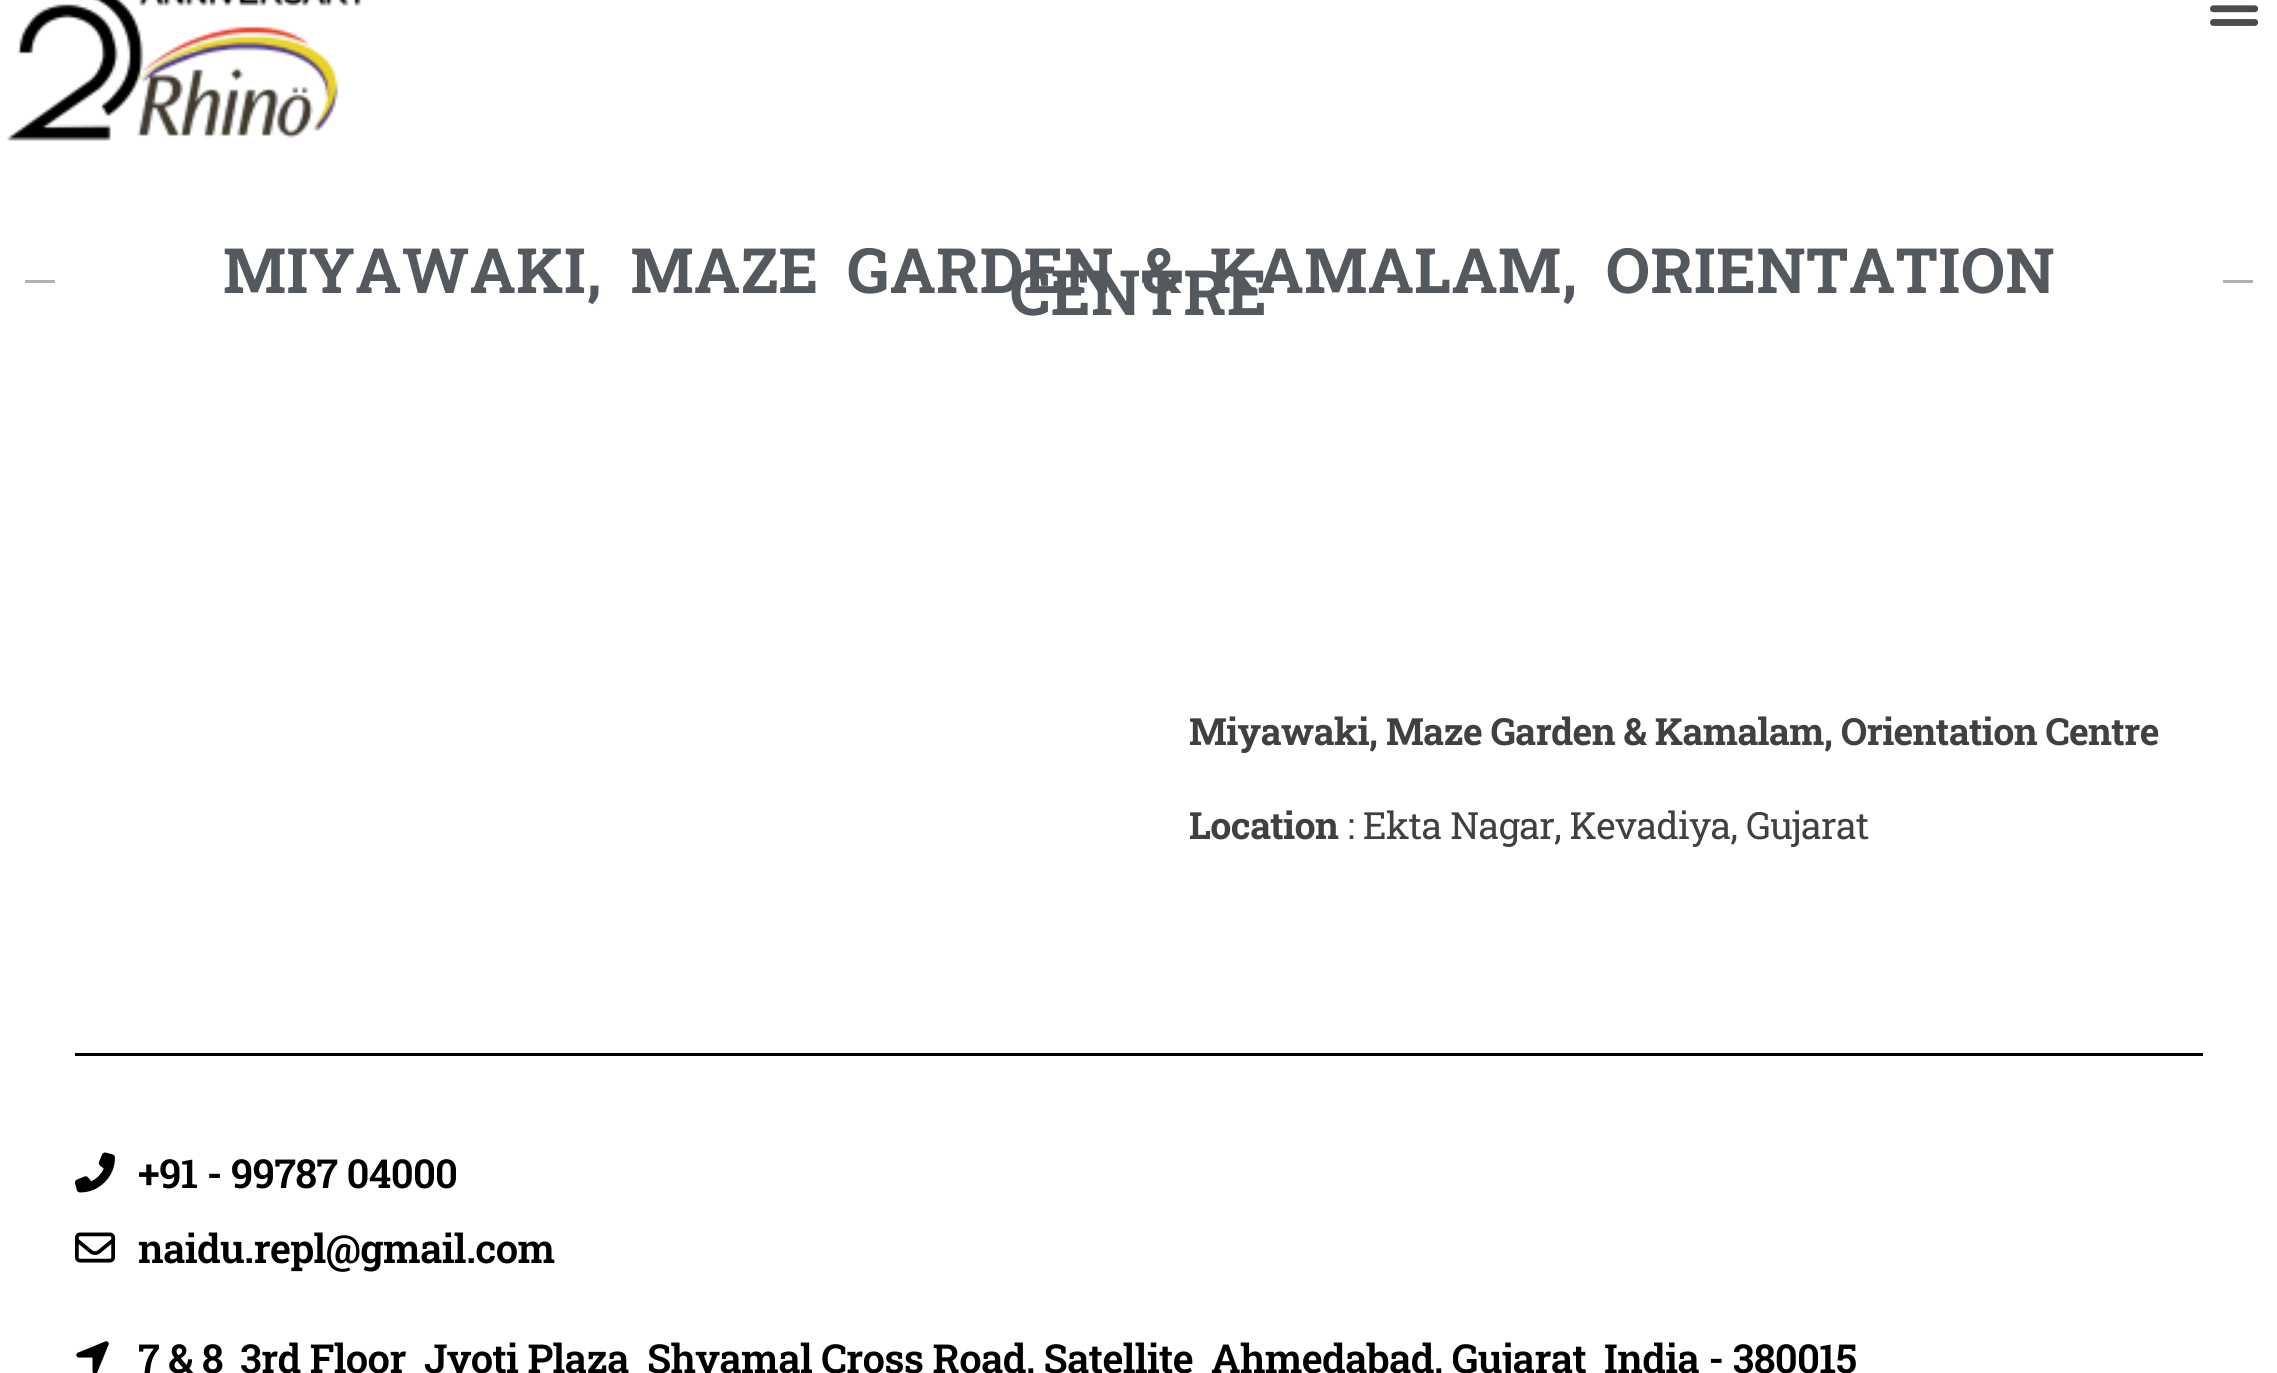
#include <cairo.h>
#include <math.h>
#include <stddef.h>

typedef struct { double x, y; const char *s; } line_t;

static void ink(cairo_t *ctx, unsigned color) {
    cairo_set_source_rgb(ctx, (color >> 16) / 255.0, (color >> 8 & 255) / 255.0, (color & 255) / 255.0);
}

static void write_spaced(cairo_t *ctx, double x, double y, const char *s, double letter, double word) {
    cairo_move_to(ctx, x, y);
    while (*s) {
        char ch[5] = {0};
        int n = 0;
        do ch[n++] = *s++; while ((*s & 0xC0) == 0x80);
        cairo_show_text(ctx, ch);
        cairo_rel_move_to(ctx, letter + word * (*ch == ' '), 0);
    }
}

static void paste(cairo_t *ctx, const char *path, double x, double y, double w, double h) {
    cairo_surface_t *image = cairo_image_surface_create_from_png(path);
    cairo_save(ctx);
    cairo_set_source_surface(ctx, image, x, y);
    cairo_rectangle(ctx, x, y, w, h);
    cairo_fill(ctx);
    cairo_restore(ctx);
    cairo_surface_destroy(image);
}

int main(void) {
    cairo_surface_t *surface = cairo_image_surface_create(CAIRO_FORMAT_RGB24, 2277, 1373);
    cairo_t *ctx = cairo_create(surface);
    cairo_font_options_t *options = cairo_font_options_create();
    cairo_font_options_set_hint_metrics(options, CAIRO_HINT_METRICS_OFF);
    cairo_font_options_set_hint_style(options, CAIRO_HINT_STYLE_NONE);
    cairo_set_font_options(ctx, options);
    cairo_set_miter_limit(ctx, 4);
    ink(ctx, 0xFFFFFF);
    cairo_paint(ctx);
    paste(ctx, "media/1.png", 7, 0, 354, 141);
    paste(ctx, "media/2.png", 2210, 5, 49, 21);
    ink(ctx, 0xB0B0B0);
    cairo_rectangle(ctx, 25, 280, 30, 3);
    cairo_fill(ctx);
    cairo_select_font_face(ctx, "Roboto Slab", CAIRO_FONT_SLANT_NORMAL, CAIRO_FONT_WEIGHT_BOLD);
    cairo_set_font_size(ctx, 62.5);
    ink(ctx, 0x54595F);
    write_spaced(ctx, 223, 293, "MIYAWAKI, MAZE GARDEN & KAMALAM, ORIENTATION", 0.5, 12.5);
    write_spaced(ctx, 1010, 315, "CENTRE", 0.5, 0);
    ink(ctx, 0xB0B0B0);
    cairo_rectangle(ctx, 2223, 280, 30, 3);
    cairo_fill(ctx);
    cairo_set_font_size(ctx, 37.5);
    ink(ctx, 0x423F3F);
    write_spaced(ctx, 1189, 745, "Miyawaki, Maze Garden & Kamalam, Orientation Centre", -0.68, 0);
    write_spaced(ctx, 1189, 839, "Location", -0.68, 0);
    cairo_select_font_face(ctx, "Roboto Slab", CAIRO_FONT_SLANT_NORMAL, CAIRO_FONT_WEIGHT_NORMAL);
    write_spaced(ctx, 1347, 839, ": Ekta Nagar, Kevadiya, Gujarat", -0.68, 0);
    ink(ctx, 0x000000);
    cairo_rectangle(ctx, 75, 1053, 2128, 3);
    cairo_fill(ctx);
    paste(ctx, "media/3.png", 75, 1152, 40, 41);
    cairo_select_font_face(ctx, "Roboto Slab SemiBold", CAIRO_FONT_SLANT_NORMAL, CAIRO_FONT_WEIGHT_NORMAL);
    cairo_set_font_size(ctx, 40);
    write_spaced(ctx, 138, 1188, "+91 - 99787 04000", -0.68, 0);
    paste(ctx, "media/4.png", 75, 1232, 40, 31);
    write_spaced(ctx, 138, 1263, "naidu.repl@gmail.com", -0.68, 0);
    paste(ctx, "media/5.png", 76, 1341, 33, 32);
    {
        static const line_t items[] = {
            {138, 1373, "7 & 8"},
            {240, 1373, "3rd Floor"},
            {424, 1373, "Jyoti Plaza"},
            {647, 1373, "Shyamal Cross Road, Satellite"},
            {1211, 1373, "Ahmedabad, Gujarat"},
            {1604, 1373, "India - 380015"},
        };
        for (size_t i = 0; i < sizeof items / sizeof *items; i++) {
            write_spaced(ctx, items[i].x, items[i].y, items[i].s, -0.68, 0);
        }
    }
    cairo_surface_write_to_png(surface, "image.png");
    cairo_font_options_destroy(options);
    cairo_destroy(ctx);
    cairo_surface_destroy(surface);
    return 0;
}
